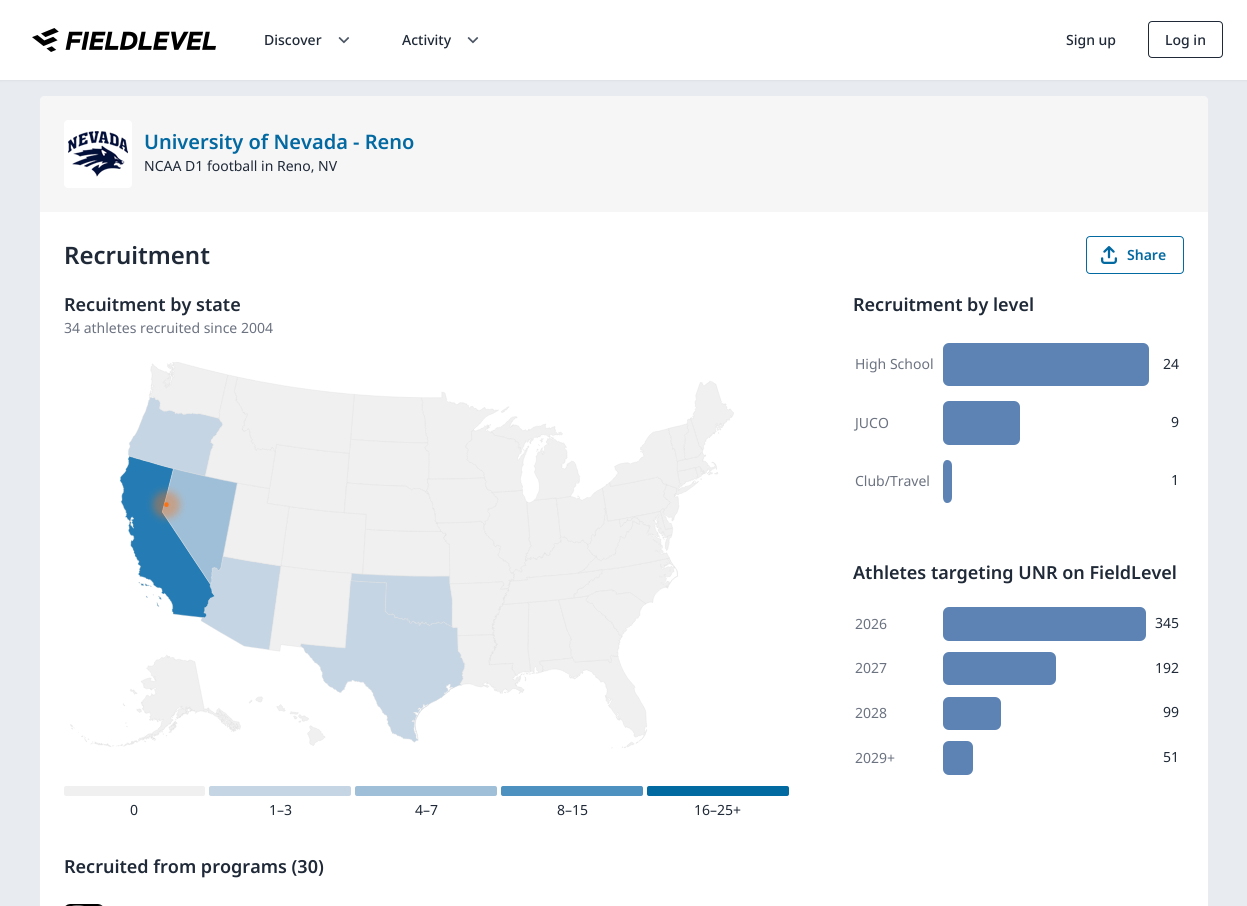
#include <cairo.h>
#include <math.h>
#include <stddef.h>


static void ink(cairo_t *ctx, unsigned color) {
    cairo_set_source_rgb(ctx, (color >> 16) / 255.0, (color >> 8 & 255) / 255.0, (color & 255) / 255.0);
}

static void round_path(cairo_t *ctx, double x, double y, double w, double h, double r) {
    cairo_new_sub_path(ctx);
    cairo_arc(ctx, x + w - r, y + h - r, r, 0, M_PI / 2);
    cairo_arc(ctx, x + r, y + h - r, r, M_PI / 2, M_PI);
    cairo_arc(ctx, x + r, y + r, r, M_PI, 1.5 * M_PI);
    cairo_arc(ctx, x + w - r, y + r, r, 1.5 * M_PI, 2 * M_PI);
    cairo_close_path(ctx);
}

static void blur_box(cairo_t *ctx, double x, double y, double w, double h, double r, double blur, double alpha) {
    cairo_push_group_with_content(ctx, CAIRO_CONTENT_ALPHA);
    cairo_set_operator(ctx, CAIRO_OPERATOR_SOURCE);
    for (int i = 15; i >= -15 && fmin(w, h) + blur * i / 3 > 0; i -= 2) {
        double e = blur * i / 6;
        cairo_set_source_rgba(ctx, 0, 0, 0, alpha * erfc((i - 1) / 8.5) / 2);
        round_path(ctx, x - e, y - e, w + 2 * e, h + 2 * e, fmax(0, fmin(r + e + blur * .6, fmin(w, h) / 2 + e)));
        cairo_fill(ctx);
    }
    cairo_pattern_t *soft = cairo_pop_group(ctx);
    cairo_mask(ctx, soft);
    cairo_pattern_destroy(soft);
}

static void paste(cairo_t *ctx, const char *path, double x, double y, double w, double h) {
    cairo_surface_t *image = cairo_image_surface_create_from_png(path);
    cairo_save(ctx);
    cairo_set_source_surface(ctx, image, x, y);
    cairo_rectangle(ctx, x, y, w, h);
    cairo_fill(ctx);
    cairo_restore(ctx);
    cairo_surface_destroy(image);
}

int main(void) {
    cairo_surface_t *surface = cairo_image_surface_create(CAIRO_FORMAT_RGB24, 1247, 906);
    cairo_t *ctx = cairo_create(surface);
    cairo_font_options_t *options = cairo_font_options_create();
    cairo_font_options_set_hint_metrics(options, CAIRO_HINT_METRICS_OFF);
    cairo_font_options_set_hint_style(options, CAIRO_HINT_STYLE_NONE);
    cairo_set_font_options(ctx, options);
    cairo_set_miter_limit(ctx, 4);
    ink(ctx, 0xE8EBEF);
    cairo_paint(ctx);
    ink(ctx, 0x000000);
    blur_box(ctx, 0, 1, 1247, 80, 0, 1, 0.05);
    ink(ctx, 0xFFFFFF);
    cairo_rectangle(ctx, 0, 0, 1247, 80);
    cairo_fill(ctx);
    paste(ctx, "media/1.png", 32, 28, 184, 24);
    cairo_select_font_face(ctx, "Noto Sans Medium", CAIRO_FONT_SLANT_NORMAL, CAIRO_FONT_WEIGHT_NORMAL);
    cairo_set_font_size(ctx, 14);
    ink(ctx, 0x1F2937);
    cairo_move_to(ctx, 264, 45);
    cairo_show_text(ctx, "Discover");
    paste(ctx, "media/2.png", 338, 37, 12, 7);
    cairo_move_to(ctx, 402, 45);
    cairo_show_text(ctx, "Activity");
    paste(ctx, "media/3.png", 467, 37, 12, 7);
    cairo_move_to(ctx, 1066, 45);
    cairo_show_text(ctx, "Sign up");
    round_path(ctx, 1148.5, 21.5, 74, 36, 3.5);
    cairo_set_line_width(ctx, 1);
    cairo_stroke(ctx);
    cairo_move_to(ctx, 1165, 45);
    cairo_show_text(ctx, "Log in");
    ink(ctx, 0xF6F6F7);
    cairo_new_path(ctx);
    cairo_move_to(ctx, 44, 96);
    cairo_line_to(ctx, 1204, 96);
    cairo_curve_to(ctx, 1206, 96, 1208, 98, 1208, 100);
    cairo_line_to(ctx, 1208, 212);
    cairo_line_to(ctx, 40, 212);
    cairo_line_to(ctx, 40, 100);
    cairo_curve_to(ctx, 40, 98, 42, 96, 44, 96);
    cairo_close_path(ctx);
    cairo_fill(ctx);
    ink(ctx, 0xFFFFFF);
    round_path(ctx, 64, 120, 68, 68, 4);
    cairo_fill(ctx);
    paste(ctx, "media/4.png", 68, 131, 60, 46);
    cairo_select_font_face(ctx, "Noto Sans SemiBold", CAIRO_FONT_SLANT_NORMAL, CAIRO_FONT_WEIGHT_NORMAL);
    cairo_set_font_size(ctx, 20);
    ink(ctx, 0x0369A1);
    cairo_move_to(ctx, 144, 149);
    cairo_show_text(ctx, "University of Nevada - Reno");
    cairo_select_font_face(ctx, "Noto Sans", CAIRO_FONT_SLANT_NORMAL, CAIRO_FONT_WEIGHT_NORMAL);
    cairo_set_font_size(ctx, 14);
    ink(ctx, 0x1F2937);
    cairo_move_to(ctx, 144, 171);
    cairo_show_text(ctx, "NCAA D1 football in Reno, NV");
    ink(ctx, 0xFFFFFF);
    cairo_rectangle(ctx, 40, 212, 1168, 694);
    cairo_fill(ctx);
    cairo_select_font_face(ctx, "Noto Sans SemiBold", CAIRO_FONT_SLANT_NORMAL, CAIRO_FONT_WEIGHT_NORMAL);
    cairo_set_font_size(ctx, 24);
    ink(ctx, 0x1F2937);
    cairo_move_to(ctx, 64, 264);
    cairo_show_text(ctx, "Recruitment");
    round_path(ctx, 1086.5, 236.5, 97, 37, 3.5);
    ink(ctx, 0x0369A1);
    cairo_stroke(ctx);
    paste(ctx, "media/5.png", 1101, 246, 16, 18);
    cairo_set_font_size(ctx, 14);
    cairo_move_to(ctx, 1127, 260);
    cairo_show_text(ctx, "Share");
    cairo_set_font_size(ctx, 18);
    ink(ctx, 0x1F2937);
    cairo_move_to(ctx, 64, 311);
    cairo_show_text(ctx, "Recuitment by state");
    cairo_select_font_face(ctx, "Noto Sans", CAIRO_FONT_SLANT_NORMAL, CAIRO_FONT_WEIGHT_NORMAL);
    cairo_set_font_size(ctx, 14);
    ink(ctx, 0x6B7280);
    cairo_move_to(ctx, 64, 333);
    cairo_show_text(ctx, "34 athletes recruited since 2004");
    paste(ctx, "media/6.png", 70, 362, 664, 387);
    ink(ctx, 0xF0F0F0);
    round_path(ctx, 64, 786, 141, 10, 2);
    cairo_fill(ctx);
    ink(ctx, 0x1F2937);
    cairo_move_to(ctx, 130, 815);
    cairo_show_text(ctx, "0");
    ink(ctx, 0xC5D5E4);
    round_path(ctx, 209, 786, 142, 10, 2);
    cairo_fill(ctx);
    ink(ctx, 0x1F2937);
    cairo_move_to(ctx, 269, 815);
    cairo_show_text(ctx, "1–3");
    ink(ctx, 0x9FBFD8);
    round_path(ctx, 355, 786, 142, 10, 2);
    cairo_fill(ctx);
    ink(ctx, 0x1F2937);
    cairo_move_to(ctx, 415, 815);
    cairo_show_text(ctx, "4–7");
    ink(ctx, 0x4C91C0);
    round_path(ctx, 501, 786, 142, 10, 2);
    cairo_fill(ctx);
    ink(ctx, 0x1F2937);
    cairo_move_to(ctx, 557, 815);
    cairo_show_text(ctx, "8–15");
    ink(ctx, 0x0369A1);
    round_path(ctx, 647, 786, 142, 10, 2);
    cairo_fill(ctx);
    ink(ctx, 0x1F2937);
    cairo_move_to(ctx, 694, 815);
    cairo_show_text(ctx, "16–25+");
    cairo_select_font_face(ctx, "Noto Sans SemiBold", CAIRO_FONT_SLANT_NORMAL, CAIRO_FONT_WEIGHT_NORMAL);
    cairo_set_font_size(ctx, 18);
    cairo_move_to(ctx, 64, 873);
    cairo_show_text(ctx, "Recruited from programs (30)");
    paste(ctx, "media/7.png", 65, 904, 38, 2);
    cairo_move_to(ctx, 853, 311);
    cairo_show_text(ctx, "Recruitment by level");
    ink(ctx, 0x5C83B4);
    round_path(ctx, 943, 343, 206, 43, 6);
    cairo_fill(ctx);
    round_path(ctx, 943, 401, 77, 44, 6);
    cairo_fill(ctx);
    cairo_new_path(ctx);
    cairo_move_to(ctx, 947, 460);
    cairo_curve_to(ctx, 950, 460, 952, 462, 952, 466);
    cairo_line_to(ctx, 952, 497);
    cairo_curve_to(ctx, 952, 501, 950, 503, 947, 503);
    cairo_curve_to(ctx, 945, 503, 943, 501, 943, 497);
    cairo_line_to(ctx, 943, 466);
    cairo_curve_to(ctx, 943, 462, 945, 460, 947, 460);
    cairo_close_path(ctx);
    cairo_fill(ctx);
    cairo_select_font_face(ctx, "Noto Sans", CAIRO_FONT_SLANT_NORMAL, CAIRO_FONT_WEIGHT_NORMAL);
    cairo_set_font_size(ctx, 14);
    ink(ctx, 0x6B7280);
    cairo_move_to(ctx, 855, 369);
    cairo_show_text(ctx, "High School");
    ink(ctx, 0x1F2937);
    cairo_move_to(ctx, 1163, 369);
    cairo_show_text(ctx, "24");
    ink(ctx, 0x6B7280);
    cairo_move_to(ctx, 855, 428);
    cairo_show_text(ctx, "JUCO");
    ink(ctx, 0x1F2937);
    cairo_move_to(ctx, 1171, 427);
    cairo_show_text(ctx, "9");
    ink(ctx, 0x6B7280);
    cairo_move_to(ctx, 855, 486);
    cairo_show_text(ctx, "Club/Travel");
    ink(ctx, 0x1F2937);
    cairo_move_to(ctx, 1171, 485);
    cairo_show_text(ctx, "1");
    cairo_select_font_face(ctx, "Noto Sans SemiBold", CAIRO_FONT_SLANT_NORMAL, CAIRO_FONT_WEIGHT_NORMAL);
    cairo_set_font_size(ctx, 18);
    cairo_move_to(ctx, 853, 579);
    cairo_show_text(ctx, "Athletes targeting UNR on FieldLevel");
    ink(ctx, 0x5C83B4);
    round_path(ctx, 943, 607, 203, 34, 6);
    cairo_fill(ctx);
    round_path(ctx, 943, 652, 113, 33, 6);
    cairo_fill(ctx);
    round_path(ctx, 943, 697, 58, 33, 6);
    cairo_fill(ctx);
    round_path(ctx, 943, 741, 30, 34, 6);
    cairo_fill(ctx);
    cairo_select_font_face(ctx, "Noto Sans", CAIRO_FONT_SLANT_NORMAL, CAIRO_FONT_WEIGHT_NORMAL);
    cairo_set_font_size(ctx, 14);
    ink(ctx, 0x6B7280);
    cairo_move_to(ctx, 855, 629);
    cairo_show_text(ctx, "2026");
    ink(ctx, 0x1F2937);
    cairo_move_to(ctx, 1155, 628);
    cairo_show_text(ctx, "345");
    ink(ctx, 0x6B7280);
    cairo_move_to(ctx, 855, 673);
    cairo_show_text(ctx, "2027");
    ink(ctx, 0x1F2937);
    cairo_move_to(ctx, 1155, 673);
    cairo_show_text(ctx, "192");
    ink(ctx, 0x6B7280);
    cairo_move_to(ctx, 855, 718);
    cairo_show_text(ctx, "2028");
    ink(ctx, 0x1F2937);
    cairo_move_to(ctx, 1163, 717);
    cairo_show_text(ctx, "99");
    ink(ctx, 0x6B7280);
    cairo_move_to(ctx, 855, 763);
    cairo_show_text(ctx, "2029+");
    ink(ctx, 0x1F2937);
    cairo_move_to(ctx, 1163, 762);
    cairo_show_text(ctx, "51");
    cairo_surface_write_to_png(surface, "image.png");
    cairo_font_options_destroy(options);
    cairo_destroy(ctx);
    cairo_surface_destroy(surface);
    return 0;
}
